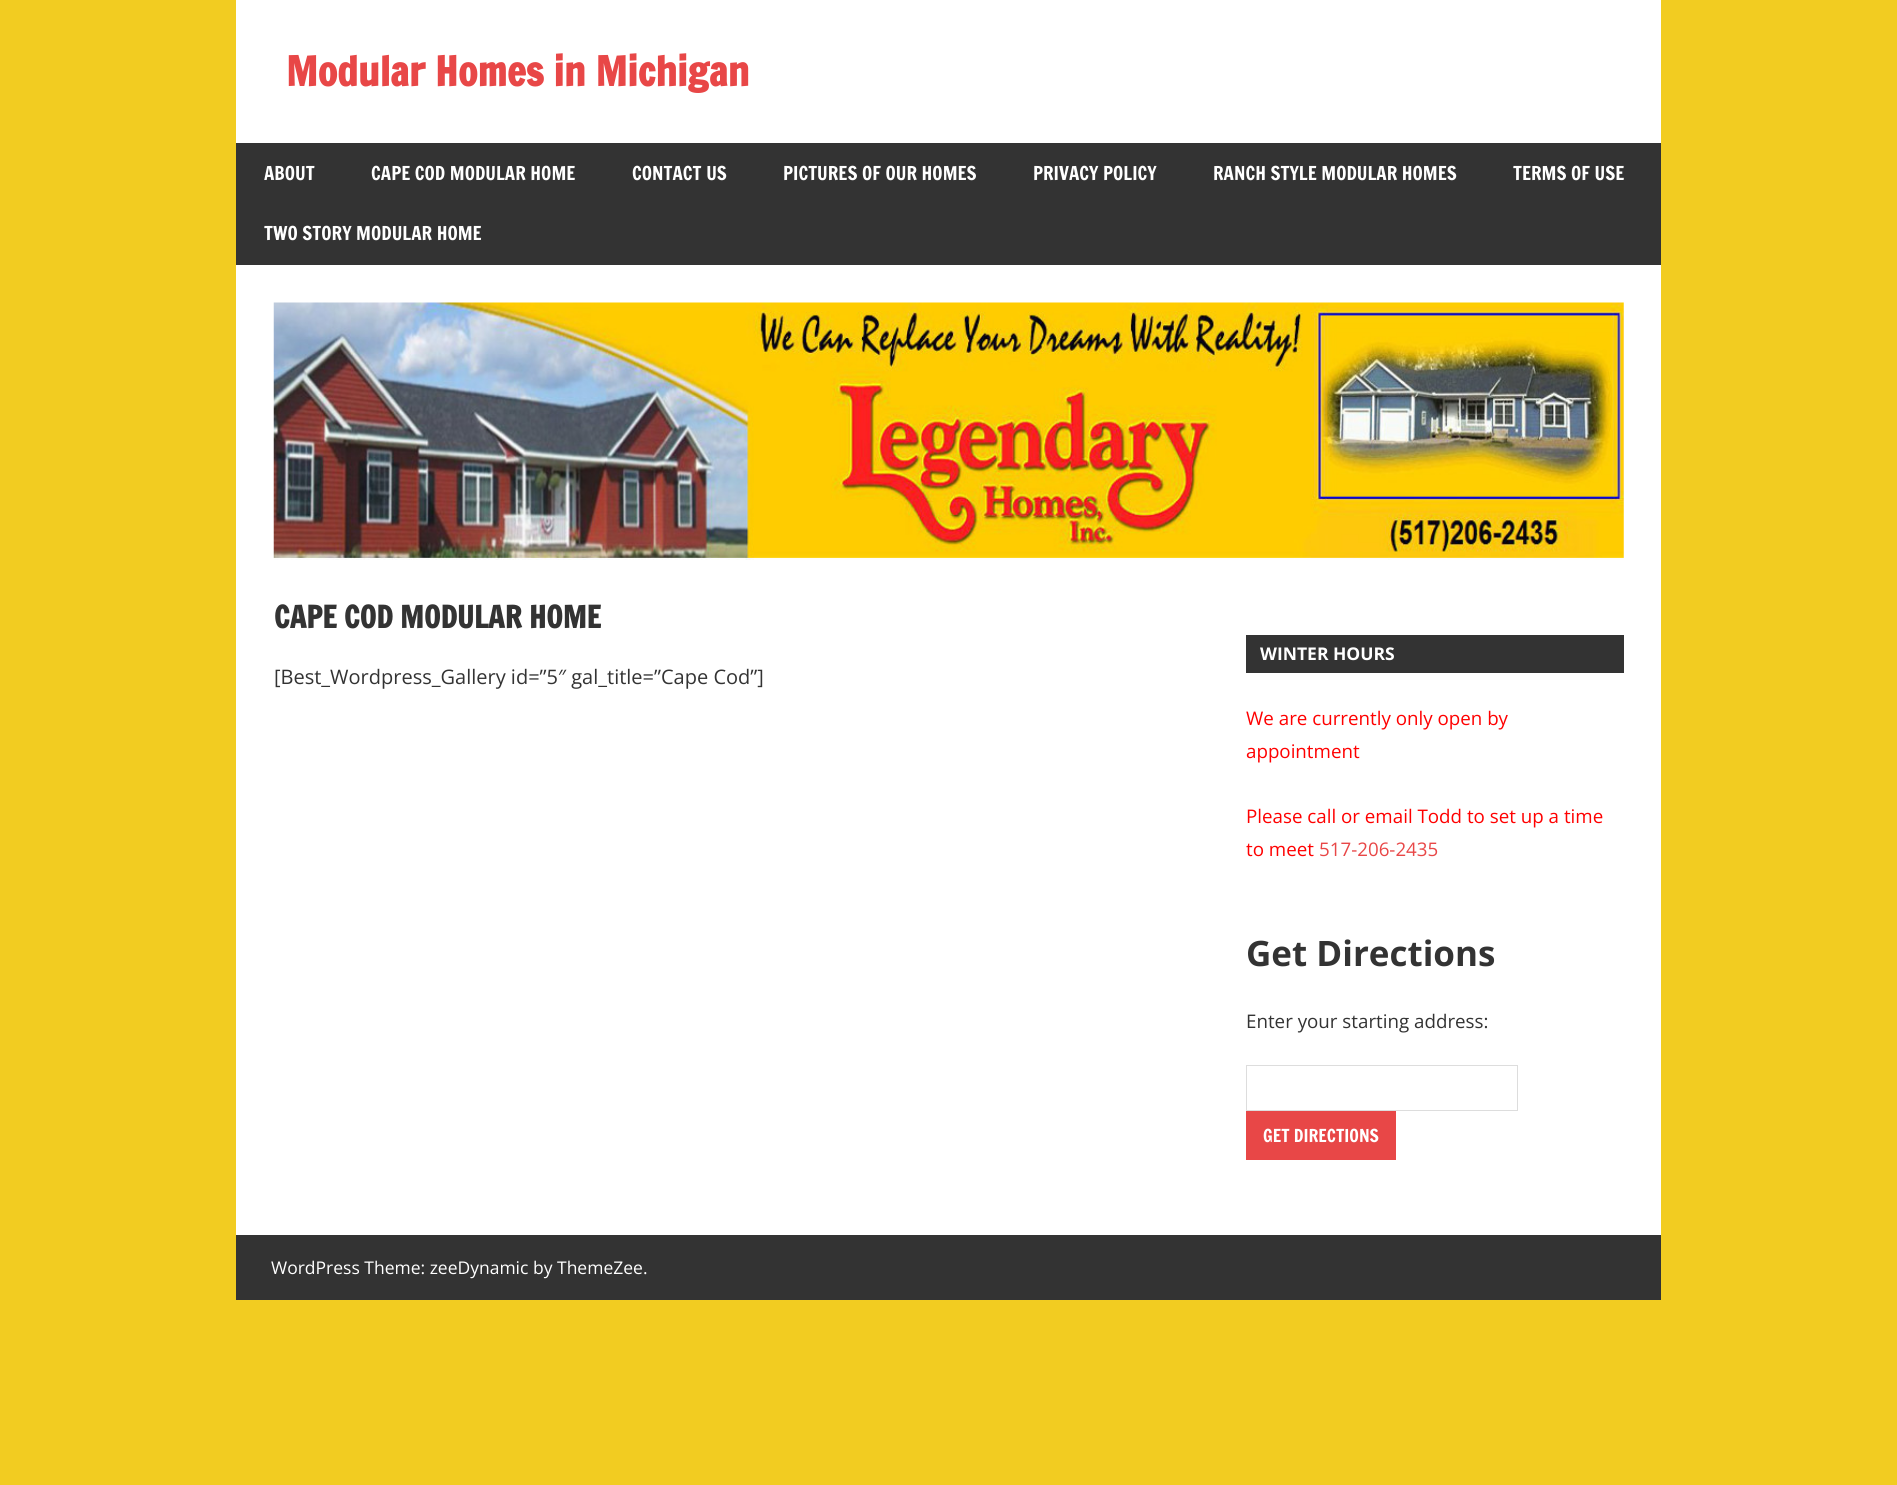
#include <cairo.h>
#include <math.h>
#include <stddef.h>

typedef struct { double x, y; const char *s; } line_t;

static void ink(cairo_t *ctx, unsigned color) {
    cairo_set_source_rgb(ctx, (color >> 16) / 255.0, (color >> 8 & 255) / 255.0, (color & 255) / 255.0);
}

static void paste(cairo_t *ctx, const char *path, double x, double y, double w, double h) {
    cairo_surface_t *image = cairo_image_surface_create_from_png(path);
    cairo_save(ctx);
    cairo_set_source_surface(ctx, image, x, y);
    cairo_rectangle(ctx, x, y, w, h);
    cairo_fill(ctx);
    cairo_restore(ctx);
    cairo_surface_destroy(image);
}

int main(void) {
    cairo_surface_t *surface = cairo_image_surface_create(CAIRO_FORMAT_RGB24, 1897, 1485);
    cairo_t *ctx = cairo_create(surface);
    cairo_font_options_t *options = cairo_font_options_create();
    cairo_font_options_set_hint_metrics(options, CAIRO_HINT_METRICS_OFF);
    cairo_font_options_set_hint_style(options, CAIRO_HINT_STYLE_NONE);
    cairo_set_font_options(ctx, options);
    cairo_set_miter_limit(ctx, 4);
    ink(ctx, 0xF2CC21);
    cairo_paint(ctx);
    ink(ctx, 0xFFFFFF);
    cairo_rectangle(ctx, 236, 0, 1425, 1235);
    cairo_fill(ctx);
    cairo_select_font_face(ctx, "Francois One", CAIRO_FONT_SLANT_NORMAL, CAIRO_FONT_WEIGHT_BOLD);
    cairo_set_font_size(ctx, 40);
    ink(ctx, 0xE84747);
    cairo_move_to(ctx, 286, 86);
    cairo_show_text(ctx, "Modular Homes in Michigan");
    ink(ctx, 0x333333);
    cairo_rectangle(ctx, 236, 143, 1425, 122);
    cairo_fill(ctx);
    cairo_select_font_face(ctx, "Francois One", CAIRO_FONT_SLANT_NORMAL, CAIRO_FONT_WEIGHT_NORMAL);
    cairo_set_font_size(ctx, 18.75);
    ink(ctx, 0xFFFFFF);
    {
        static const line_t items[] = {
            {264, 180, "ABOUT"},
            {371, 180, "CAPE COD MODULAR HOME"},
            {632, 180, "CONTACT US"},
            {783, 180, "PICTURES OF OUR HOMES"},
            {1033, 180, "PRIVACY POLICY"},
            {1213, 180, "RANCH STYLE MODULAR HOMES"},
            {1513, 180, "TERMS OF USE"},
            {264, 240, "TWO STORY MODULAR HOME"},
        };
        for (size_t i = 0; i < sizeof items / sizeof *items; i++) {
            cairo_move_to(ctx, items[i].x, items[i].y);
            cairo_show_text(ctx, items[i].s);
        }
    }
    paste(ctx, "media/1.png", 273, 302, 1351, 258);
    cairo_select_font_face(ctx, "Francois One", CAIRO_FONT_SLANT_NORMAL, CAIRO_FONT_WEIGHT_BOLD);
    cairo_set_font_size(ctx, 30);
    ink(ctx, 0x333333);
    cairo_move_to(ctx, 274, 628);
    cairo_show_text(ctx, "CAPE COD MODULAR HOME");
    cairo_select_font_face(ctx, "Open Sans", CAIRO_FONT_SLANT_NORMAL, CAIRO_FONT_WEIGHT_NORMAL);
    cairo_set_font_size(ctx, 20);
    cairo_move_to(ctx, 274, 684);
    cairo_show_text(ctx, "[Best_Wordpress_Gallery id=”5″ gal_title=”Cape Cod”]");
    cairo_rectangle(ctx, 1246, 635, 378, 38);
    cairo_fill(ctx);
    cairo_select_font_face(ctx, "Open Sans", CAIRO_FONT_SLANT_NORMAL, CAIRO_FONT_WEIGHT_BOLD);
    cairo_set_font_size(ctx, 17.5);
    ink(ctx, 0xFFFFFF);
    cairo_move_to(ctx, 1260, 660);
    cairo_show_text(ctx, "WINTER HOURS");
    cairo_select_font_face(ctx, "Open Sans", CAIRO_FONT_SLANT_NORMAL, CAIRO_FONT_WEIGHT_NORMAL);
    cairo_set_font_size(ctx, 18.75);
    ink(ctx, 0xFF0000);
    {
        static const line_t items[] = {
            {1246, 725, "We are currently only open by"},
            {1246, 758, "appointment"},
            {1246, 823, "Please call or email Todd to set up a time"},
            {1246, 856, "to meet"},
        };
        for (size_t i = 0; i < sizeof items / sizeof *items; i++) {
            cairo_move_to(ctx, items[i].x, items[i].y);
            cairo_show_text(ctx, items[i].s);
        }
    }
    ink(ctx, 0xE84747);
    cairo_move_to(ctx, 1319, 856);
    cairo_show_text(ctx, "517-206-2435");
    cairo_select_font_face(ctx, "Open Sans", CAIRO_FONT_SLANT_NORMAL, CAIRO_FONT_WEIGHT_BOLD);
    cairo_set_font_size(ctx, 35);
    ink(ctx, 0x333333);
    cairo_move_to(ctx, 1246, 966);
    cairo_show_text(ctx, "Get Directions");
    cairo_select_font_face(ctx, "Open Sans", CAIRO_FONT_SLANT_NORMAL, CAIRO_FONT_WEIGHT_NORMAL);
    cairo_set_font_size(ctx, 18.75);
    cairo_move_to(ctx, 1246, 1028);
    cairo_show_text(ctx, "Enter your starting address:");
    cairo_rectangle(ctx, 1246.5, 1065.5, 271, 45);
    ink(ctx, 0xDDDDDD);
    cairo_set_line_width(ctx, 1);
    cairo_stroke(ctx);
    ink(ctx, 0xE84747);
    cairo_rectangle(ctx, 1246, 1111, 150, 49);
    cairo_fill(ctx);
    cairo_select_font_face(ctx, "Francois One", CAIRO_FONT_SLANT_NORMAL, CAIRO_FONT_WEIGHT_NORMAL);
    cairo_set_font_size(ctx, 17.5);
    ink(ctx, 0xFFFFFF);
    cairo_move_to(ctx, 1263, 1142);
    cairo_show_text(ctx, "GET DIRECTIONS");
    ink(ctx, 0x333333);
    cairo_rectangle(ctx, 236, 1235, 1425, 65);
    cairo_fill(ctx);
    cairo_select_font_face(ctx, "Open Sans", CAIRO_FONT_SLANT_NORMAL, CAIRO_FONT_WEIGHT_NORMAL);
    ink(ctx, 0xFFFFFF);
    cairo_move_to(ctx, 271, 1274);
    cairo_show_text(ctx, "WordPress Theme: zeeDynamic by ThemeZee.");
    cairo_surface_write_to_png(surface, "image.png");
    cairo_font_options_destroy(options);
    cairo_destroy(ctx);
    cairo_surface_destroy(surface);
    return 0;
}
